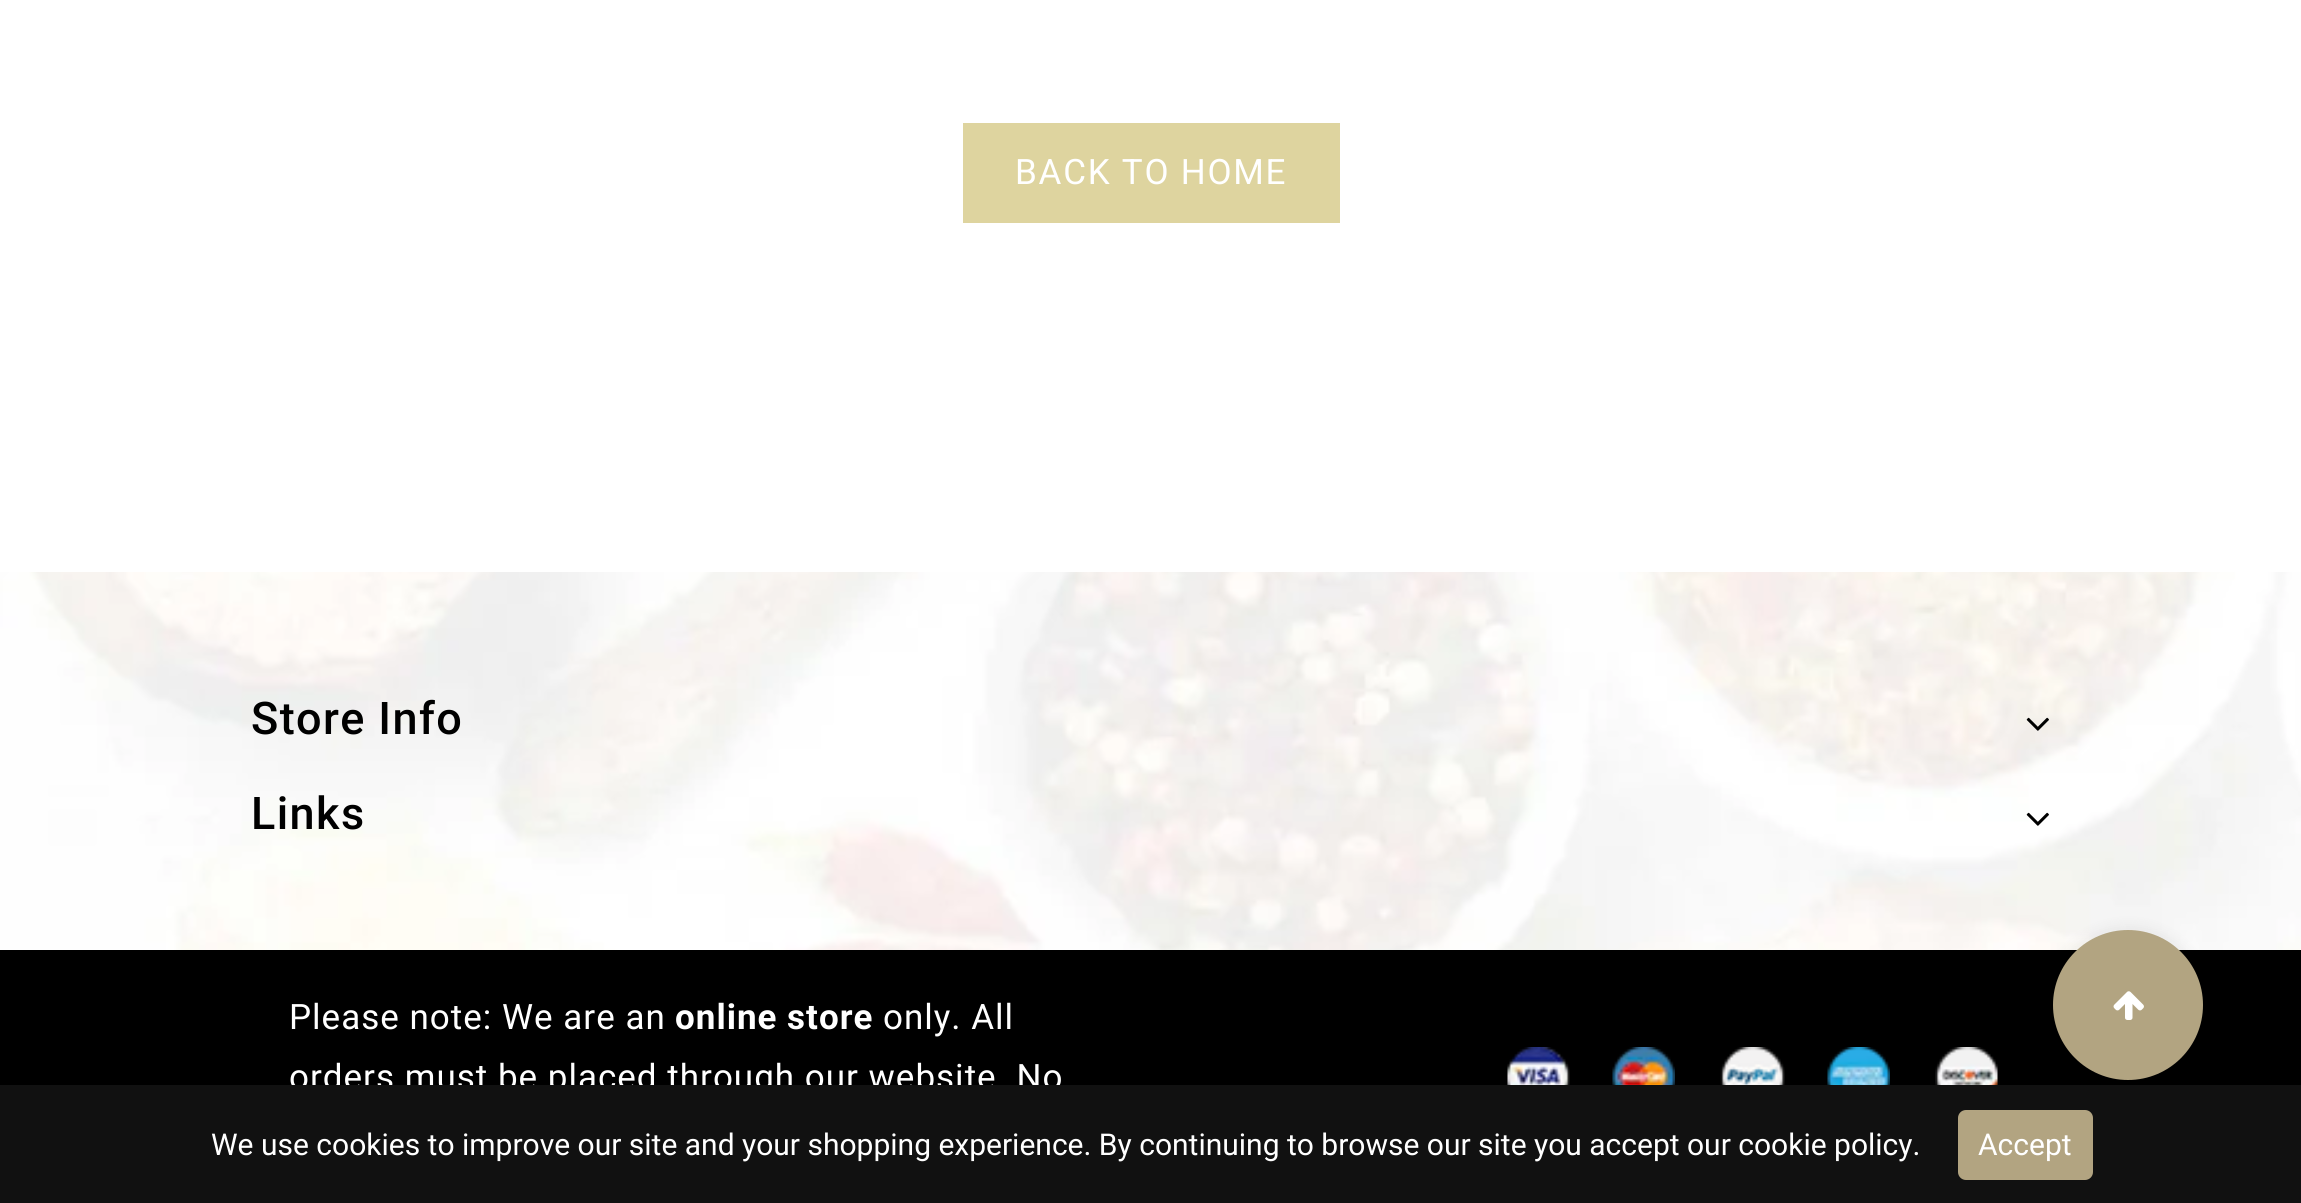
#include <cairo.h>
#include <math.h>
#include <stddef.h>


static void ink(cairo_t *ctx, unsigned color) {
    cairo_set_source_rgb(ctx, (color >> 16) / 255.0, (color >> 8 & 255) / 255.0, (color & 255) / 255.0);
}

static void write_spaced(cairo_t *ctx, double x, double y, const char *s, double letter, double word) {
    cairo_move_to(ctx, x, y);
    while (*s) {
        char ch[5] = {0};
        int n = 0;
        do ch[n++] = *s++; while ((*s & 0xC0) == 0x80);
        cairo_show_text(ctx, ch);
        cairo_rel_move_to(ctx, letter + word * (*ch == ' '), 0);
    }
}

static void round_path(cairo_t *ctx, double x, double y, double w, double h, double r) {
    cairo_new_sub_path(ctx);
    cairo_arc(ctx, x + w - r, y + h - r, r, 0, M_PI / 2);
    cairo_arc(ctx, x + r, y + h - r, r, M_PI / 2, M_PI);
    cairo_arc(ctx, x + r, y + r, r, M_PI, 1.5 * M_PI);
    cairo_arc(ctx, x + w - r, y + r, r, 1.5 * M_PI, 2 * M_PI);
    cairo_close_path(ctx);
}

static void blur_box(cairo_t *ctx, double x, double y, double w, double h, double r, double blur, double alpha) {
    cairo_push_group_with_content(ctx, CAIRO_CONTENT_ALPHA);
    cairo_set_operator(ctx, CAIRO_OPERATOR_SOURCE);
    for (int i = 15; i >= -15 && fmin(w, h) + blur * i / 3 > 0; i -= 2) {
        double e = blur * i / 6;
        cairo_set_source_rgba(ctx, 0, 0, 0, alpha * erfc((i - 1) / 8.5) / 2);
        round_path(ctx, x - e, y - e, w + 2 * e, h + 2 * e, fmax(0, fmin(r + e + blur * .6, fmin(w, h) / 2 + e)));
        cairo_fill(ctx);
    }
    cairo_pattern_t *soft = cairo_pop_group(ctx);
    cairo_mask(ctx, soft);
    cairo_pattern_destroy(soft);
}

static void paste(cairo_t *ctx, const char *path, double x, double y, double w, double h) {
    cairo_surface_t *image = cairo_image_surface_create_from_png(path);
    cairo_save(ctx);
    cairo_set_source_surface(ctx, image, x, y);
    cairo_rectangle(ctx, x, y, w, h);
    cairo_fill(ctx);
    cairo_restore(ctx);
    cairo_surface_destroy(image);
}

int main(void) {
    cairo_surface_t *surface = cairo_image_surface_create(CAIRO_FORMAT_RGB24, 2301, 1203);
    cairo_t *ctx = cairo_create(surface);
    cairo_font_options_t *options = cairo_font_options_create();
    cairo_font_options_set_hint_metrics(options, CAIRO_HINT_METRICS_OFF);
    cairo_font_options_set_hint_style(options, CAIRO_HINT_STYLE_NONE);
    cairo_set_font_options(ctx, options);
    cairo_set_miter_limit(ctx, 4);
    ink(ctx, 0xFFFFFF);
    cairo_paint(ctx);
    ink(ctx, 0xDED49F);
    cairo_rectangle(ctx, 963, 123, 377, 100);
    cairo_fill(ctx);
    cairo_select_font_face(ctx, "Roboto", CAIRO_FONT_SLANT_NORMAL, CAIRO_FONT_WEIGHT_NORMAL);
    cairo_set_font_size(ctx, 35);
    ink(ctx, 0xFFFFFF);
    write_spaced(ctx, 1015, 184, "BACK TO HOME", 1.75, 0);
    paste(ctx, "media/1.png", 0, 572, 2301, 378);
    cairo_select_font_face(ctx, "Roboto Medium", CAIRO_FONT_SLANT_NORMAL, CAIRO_FONT_WEIGHT_NORMAL);
    cairo_set_font_size(ctx, 45);
    ink(ctx, 0x000000);
    write_spaced(ctx, 251, 734, "Store Info", 1.4, 0);
    paste(ctx, "media/2.png", 2026, 717, 23, 14);
    write_spaced(ctx, 251, 829, "Links", 1.4, 0);
    paste(ctx, "media/3.png", 2026, 812, 23, 14);
    cairo_rectangle(ctx, 0, 950, 2301, 135);
    cairo_fill(ctx);
    cairo_select_font_face(ctx, "Roboto", CAIRO_FONT_SLANT_NORMAL, CAIRO_FONT_WEIGHT_NORMAL);
    cairo_set_font_size(ctx, 35);
    ink(ctx, 0xFFFFFF);
    write_spaced(ctx, 289, 1029, "Please note: We are an", 1, 0);
    cairo_select_font_face(ctx, "Roboto", CAIRO_FONT_SLANT_NORMAL, CAIRO_FONT_WEIGHT_BOLD);
    write_spaced(ctx, 675, 1029, "online store", 1, 0);
    cairo_select_font_face(ctx, "Roboto", CAIRO_FONT_SLANT_NORMAL, CAIRO_FONT_WEIGHT_NORMAL);
    write_spaced(ctx, 883, 1029, "only. All", 1, 0);
    write_spaced(ctx, 289, 1089, "orders must be placed through our website. No", 1, 0);
    paste(ctx, "media/4.png", 1507, 1047, 63, 38);
    paste(ctx, "media/5.png", 1612, 1047, 63, 38);
    paste(ctx, "media/6.png", 1720, 1047, 65, 38);
    paste(ctx, "media/7.png", 1827, 1047, 63, 38);
    paste(ctx, "media/8.png", 1935, 1047, 63, 38);
    ink(ctx, 0x111111);
    cairo_rectangle(ctx, 0, 1085, 2301, 118);
    cairo_fill(ctx);
    ink(ctx, 0x000000);
    blur_box(ctx, 2048, 925, 160, 160, 80, 6, 0.05);
    ink(ctx, 0xB2A481);
    cairo_arc(ctx, 2128, 1005, 75, 0, 2 * M_PI);
    cairo_fill(ctx);
    paste(ctx, "media/9.png", 2113, 991, 31, 29);
    cairo_set_font_size(ctx, 30);
    ink(ctx, 0xFFFFFF);
    cairo_move_to(ctx, 211, 1155);
    cairo_show_text(ctx, "We use cookies to improve our site and your shopping experience. By continuing to browse our site you accept our cookie policy.");
    ink(ctx, 0xB2A481);
    round_path(ctx, 1958, 1110, 135, 70, 8);
    cairo_fill(ctx);
    ink(ctx, 0xFFFFFF);
    cairo_move_to(ctx, 1978, 1155);
    cairo_show_text(ctx, "Accept");
    cairo_surface_write_to_png(surface, "image.png");
    cairo_font_options_destroy(options);
    cairo_destroy(ctx);
    cairo_surface_destroy(surface);
    return 0;
}
